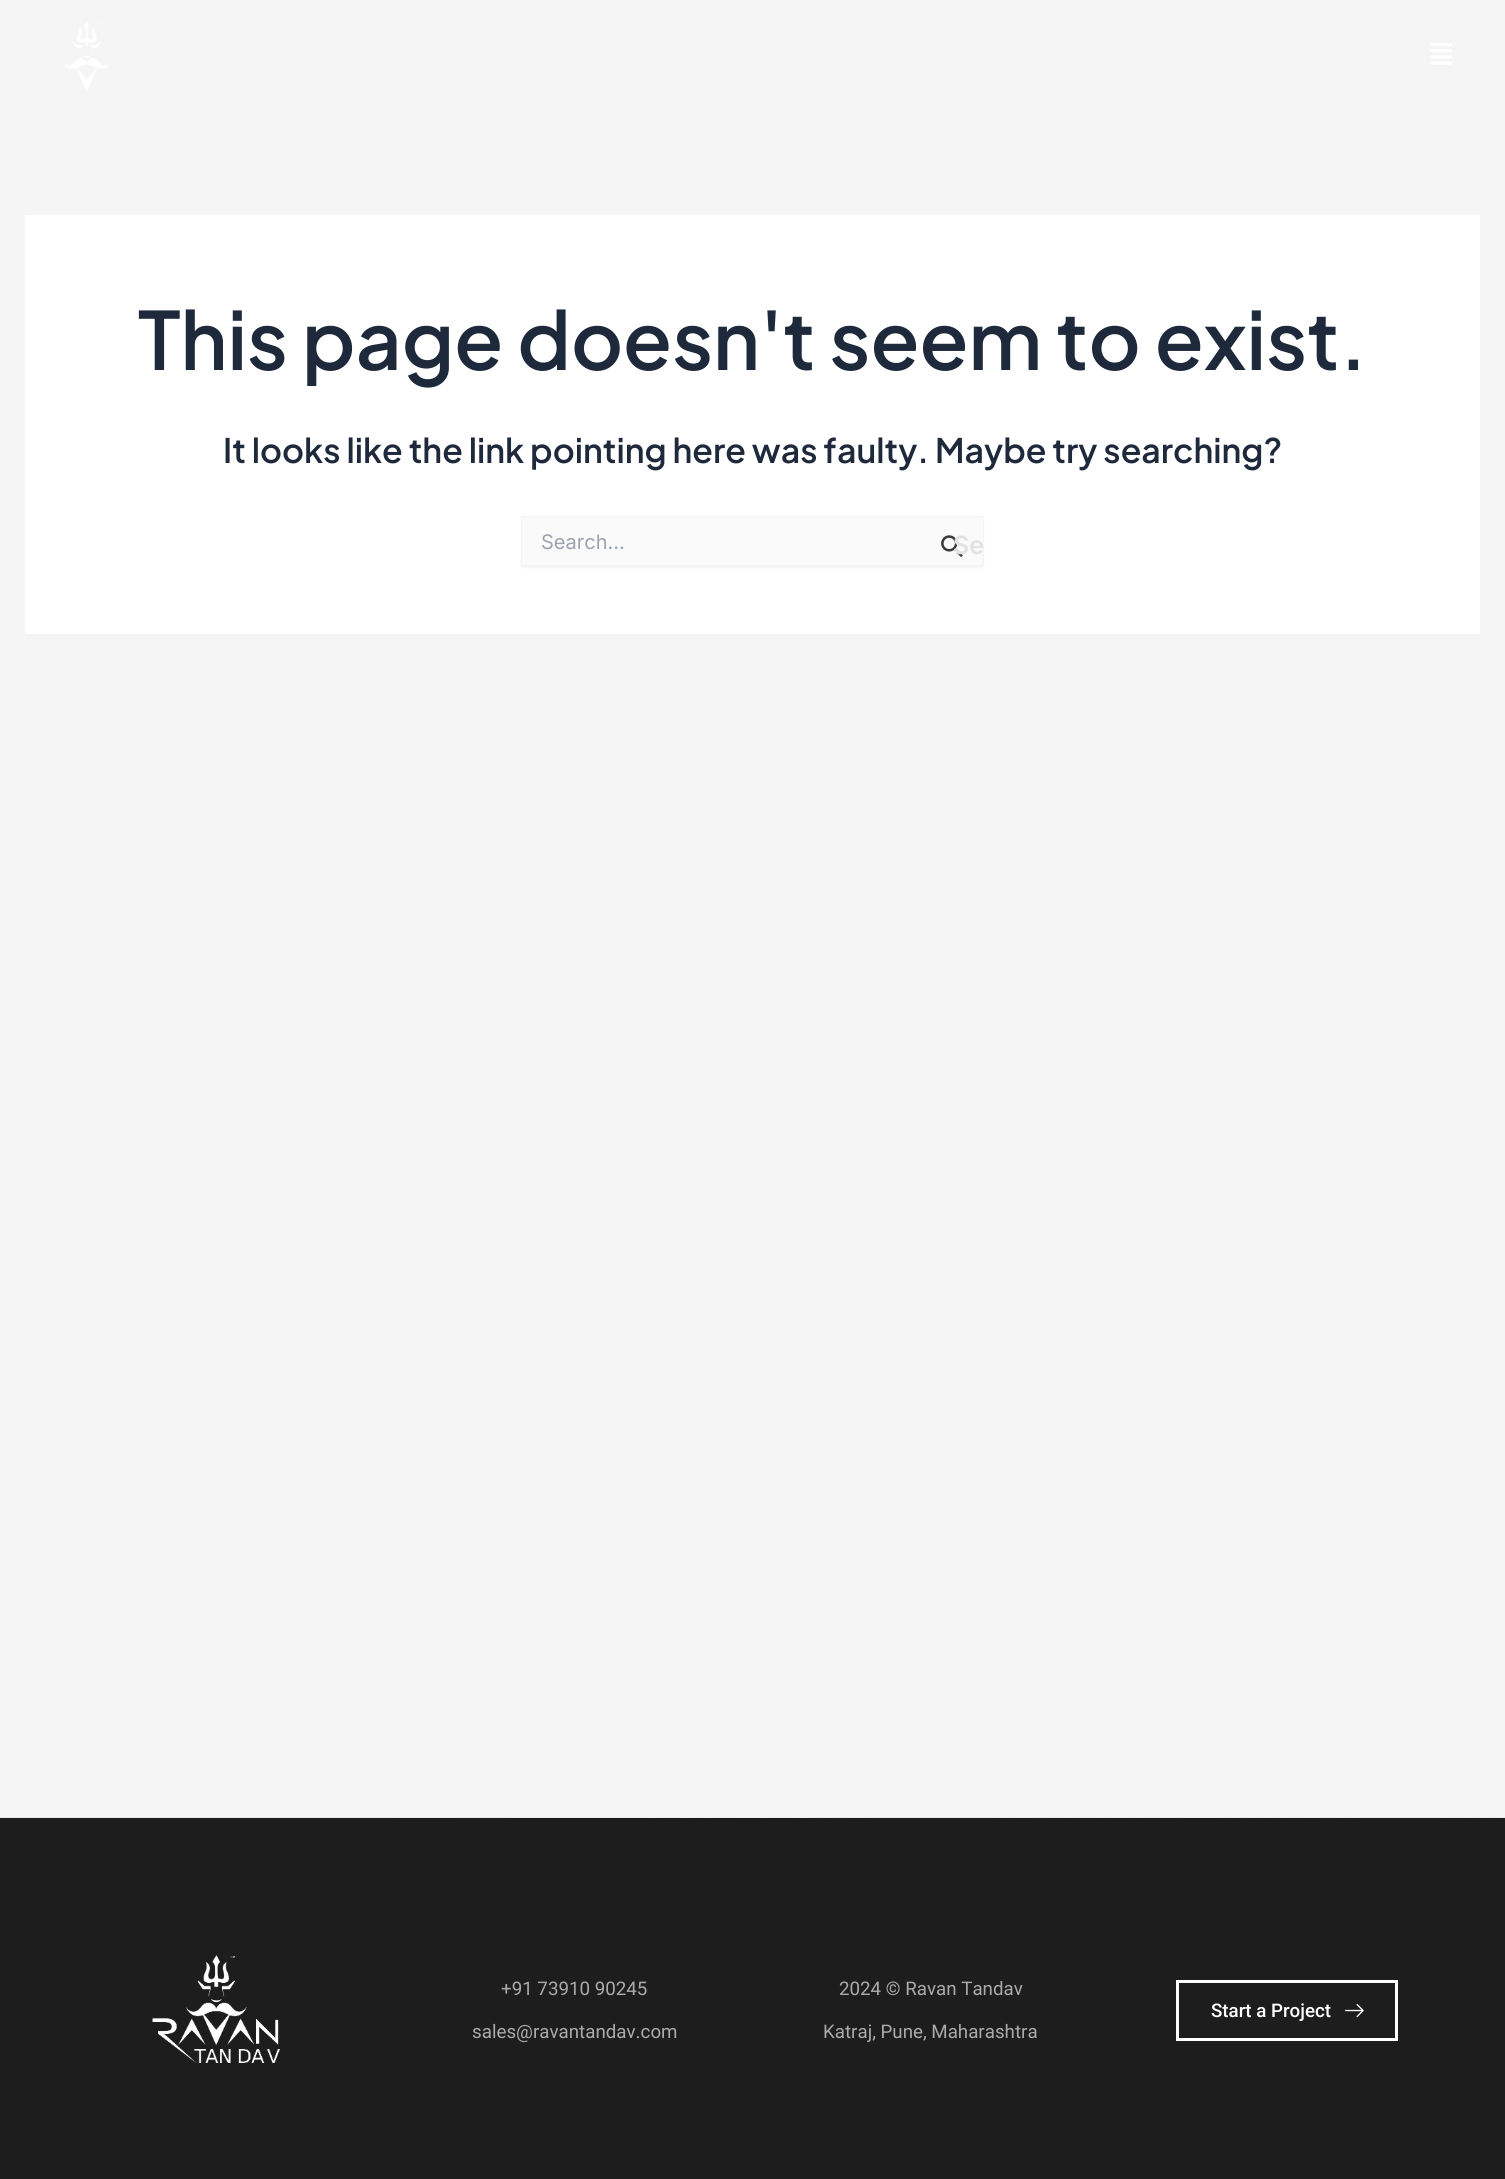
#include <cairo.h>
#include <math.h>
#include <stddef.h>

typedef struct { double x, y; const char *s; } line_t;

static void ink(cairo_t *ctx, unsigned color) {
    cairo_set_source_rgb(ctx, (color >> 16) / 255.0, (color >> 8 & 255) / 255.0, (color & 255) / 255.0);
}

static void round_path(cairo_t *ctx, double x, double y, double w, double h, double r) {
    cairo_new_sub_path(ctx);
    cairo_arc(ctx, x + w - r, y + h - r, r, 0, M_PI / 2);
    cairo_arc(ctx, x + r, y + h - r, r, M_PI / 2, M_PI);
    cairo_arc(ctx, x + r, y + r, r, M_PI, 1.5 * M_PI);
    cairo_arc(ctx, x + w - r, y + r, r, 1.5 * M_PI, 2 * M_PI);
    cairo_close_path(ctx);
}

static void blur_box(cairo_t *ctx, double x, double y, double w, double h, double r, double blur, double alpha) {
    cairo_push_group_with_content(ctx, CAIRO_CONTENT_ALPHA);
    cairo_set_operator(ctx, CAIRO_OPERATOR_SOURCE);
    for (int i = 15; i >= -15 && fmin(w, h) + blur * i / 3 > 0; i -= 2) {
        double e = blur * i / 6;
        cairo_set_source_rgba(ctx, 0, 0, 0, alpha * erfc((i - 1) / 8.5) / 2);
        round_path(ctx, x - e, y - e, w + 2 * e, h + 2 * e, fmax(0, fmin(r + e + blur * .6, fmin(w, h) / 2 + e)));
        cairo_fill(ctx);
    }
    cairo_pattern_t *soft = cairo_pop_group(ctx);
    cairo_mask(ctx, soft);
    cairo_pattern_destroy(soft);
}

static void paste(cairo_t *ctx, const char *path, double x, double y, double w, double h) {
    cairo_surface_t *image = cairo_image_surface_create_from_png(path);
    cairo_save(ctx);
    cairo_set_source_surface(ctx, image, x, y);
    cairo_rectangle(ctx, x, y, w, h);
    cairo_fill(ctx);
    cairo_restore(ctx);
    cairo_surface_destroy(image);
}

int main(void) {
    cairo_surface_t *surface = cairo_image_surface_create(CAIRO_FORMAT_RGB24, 1505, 2179);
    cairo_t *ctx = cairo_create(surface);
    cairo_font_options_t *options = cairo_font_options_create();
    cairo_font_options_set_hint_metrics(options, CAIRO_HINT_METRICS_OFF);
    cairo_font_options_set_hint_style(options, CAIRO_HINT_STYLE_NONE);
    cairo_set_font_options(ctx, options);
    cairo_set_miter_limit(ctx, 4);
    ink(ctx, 0xF5F5F5);
    cairo_paint(ctx);
    paste(ctx, "media/1.png", 65, 22, 44, 69);
    paste(ctx, "media/2.png", 1430, 43, 22, 22);
    ink(ctx, 0xFFFFFF);
    cairo_rectangle(ctx, 25, 215, 1455, 419);
    cairo_fill(ctx);
    cairo_select_font_face(ctx, "Plus Jakarta Sans SemiBold", CAIRO_FONT_SLANT_NORMAL, CAIRO_FONT_WEIGHT_NORMAL);
    cairo_set_font_size(ctx, 80);
    ink(ctx, 0x1E293B);
    cairo_move_to(ctx, 138, 370);
    cairo_show_text(ctx, "This page doesn't seem to exist.");
    cairo_set_font_size(ctx, 33.75);
    cairo_move_to(ctx, 223, 463);
    cairo_show_text(ctx, "It looks like the link pointing here was faulty. Maybe try searching?");
    ink(ctx, 0x000000);
    blur_box(ctx, 521, 518, 463, 50, 2.5, 1, 0.05);
    ink(ctx, 0xFAFAFA);
    round_path(ctx, 521.5, 516.5, 462, 49, 2);
    cairo_fill_preserve(ctx);
    ink(ctx, 0xF2F5F7);
    cairo_set_line_width(ctx, 1);
    cairo_stroke(ctx);
    cairo_select_font_face(ctx, "Inter", CAIRO_FONT_SLANT_NORMAL, CAIRO_FONT_WEIGHT_NORMAL);
    cairo_set_font_size(ctx, 20);
    ink(ctx, 0x9CA3AF);
    cairo_move_to(ctx, 541, 549);
    cairo_show_text(ctx, "Search...");
    paste(ctx, "media/3.png", 941, 535, 22, 23);
    cairo_select_font_face(ctx, "Inter SemiBold", CAIRO_FONT_SLANT_NORMAL, CAIRO_FONT_WEIGHT_NORMAL);
    cairo_set_font_size(ctx, 25);
    ink(ctx, 0xE2E2E2);
    cairo_move_to(ctx, 953, 554);
    cairo_show_text(ctx, "Se");
    ink(ctx, 0x1D1D1D);
    cairo_rectangle(ctx, 0, 1818, 1505, 361);
    cairo_fill(ctx);
    paste(ctx, "media/4.png", 0, 1817, 1505, 1);
    paste(ctx, "media/5.png", 152, 1955, 129, 108);
    cairo_select_font_face(ctx, "Roboto", CAIRO_FONT_SLANT_NORMAL, CAIRO_FONT_WEIGHT_NORMAL);
    cairo_set_font_size(ctx, 18.75);
    ink(ctx, 0xABAAAA);
    {
        static const line_t items[] = {
            {501, 1995, "+91 73910 90245"},
            {472, 2038, "sales@ravantandav.com"},
            {839, 1995, "2024 © Ravan Tandav"},
            {823, 2038, "Katraj, Pune, Maharashtra"},
        };
        for (size_t i = 0; i < sizeof items / sizeof *items; i++) {
            cairo_move_to(ctx, items[i].x, items[i].y);
            cairo_show_text(ctx, items[i].s);
        }
    }
    cairo_rectangle(ctx, 1177.5, 1981.5, 219, 58);
    ink(ctx, 0xFFFFFF);
    cairo_set_line_width(ctx, 3);
    cairo_stroke(ctx);
    cairo_select_font_face(ctx, "Roboto Medium", CAIRO_FONT_SLANT_NORMAL, CAIRO_FONT_WEIGHT_NORMAL);
    cairo_move_to(ctx, 1211, 2017);
    cairo_show_text(ctx, "Start a Project");
    paste(ctx, "media/6.png", 1345, 2004, 19, 14);
    cairo_surface_write_to_png(surface, "image.png");
    cairo_font_options_destroy(options);
    cairo_destroy(ctx);
    cairo_surface_destroy(surface);
    return 0;
}
